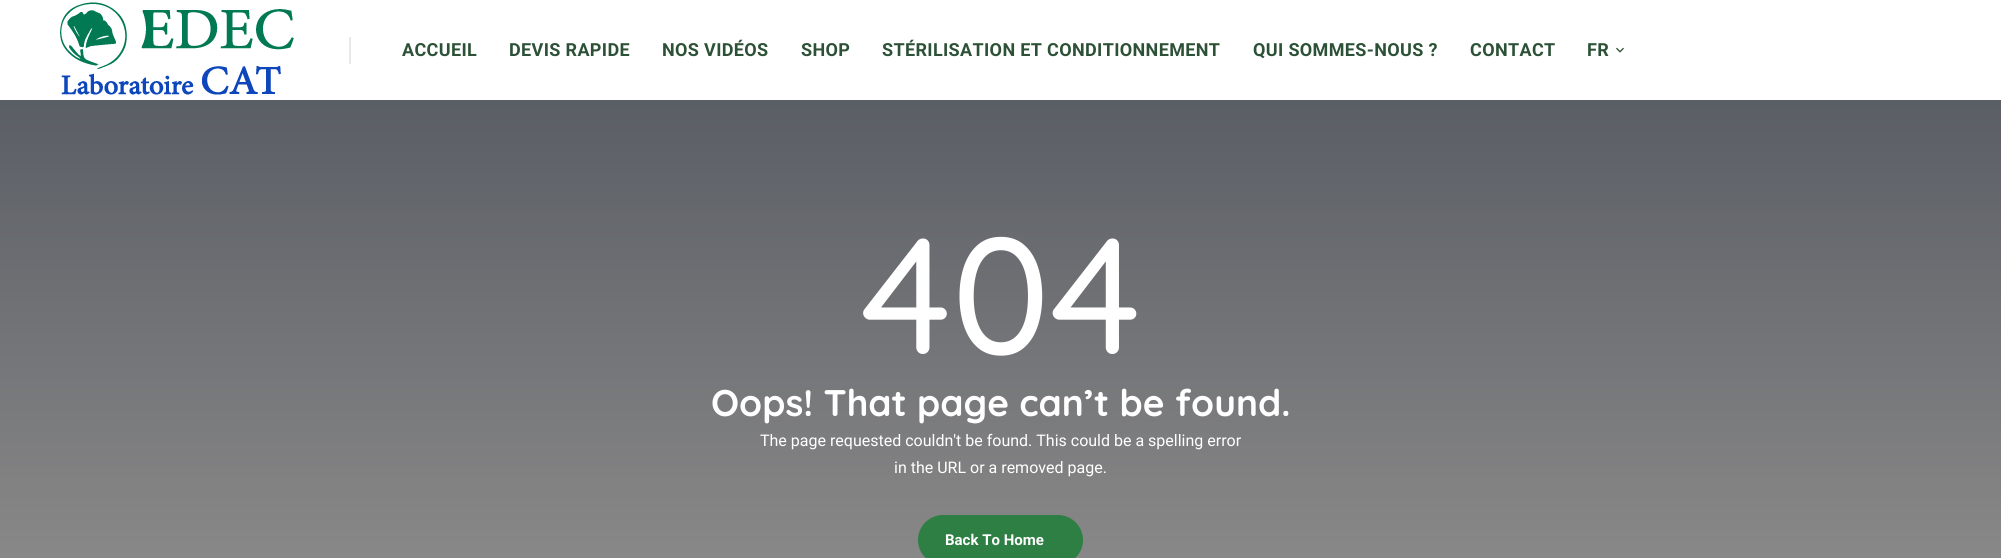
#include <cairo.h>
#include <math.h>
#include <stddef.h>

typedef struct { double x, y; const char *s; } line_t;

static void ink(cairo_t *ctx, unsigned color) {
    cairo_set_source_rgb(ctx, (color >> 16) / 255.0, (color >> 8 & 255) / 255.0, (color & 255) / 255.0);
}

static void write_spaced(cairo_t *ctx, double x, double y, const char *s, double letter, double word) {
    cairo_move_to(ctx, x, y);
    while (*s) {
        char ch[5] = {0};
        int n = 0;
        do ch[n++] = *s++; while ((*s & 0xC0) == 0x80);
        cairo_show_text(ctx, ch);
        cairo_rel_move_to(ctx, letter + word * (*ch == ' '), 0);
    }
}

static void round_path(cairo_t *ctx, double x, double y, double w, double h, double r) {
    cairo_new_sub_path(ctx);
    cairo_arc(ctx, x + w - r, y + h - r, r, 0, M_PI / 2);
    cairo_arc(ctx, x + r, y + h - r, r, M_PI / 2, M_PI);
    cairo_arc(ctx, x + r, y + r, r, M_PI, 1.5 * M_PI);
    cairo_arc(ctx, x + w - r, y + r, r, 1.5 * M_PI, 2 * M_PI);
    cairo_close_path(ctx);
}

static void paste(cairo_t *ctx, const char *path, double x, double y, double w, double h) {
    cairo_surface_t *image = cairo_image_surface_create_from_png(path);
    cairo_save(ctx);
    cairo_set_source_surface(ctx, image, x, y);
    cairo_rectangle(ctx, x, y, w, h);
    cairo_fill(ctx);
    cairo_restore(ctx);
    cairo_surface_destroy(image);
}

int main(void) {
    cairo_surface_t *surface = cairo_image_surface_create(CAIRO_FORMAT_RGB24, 2001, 558);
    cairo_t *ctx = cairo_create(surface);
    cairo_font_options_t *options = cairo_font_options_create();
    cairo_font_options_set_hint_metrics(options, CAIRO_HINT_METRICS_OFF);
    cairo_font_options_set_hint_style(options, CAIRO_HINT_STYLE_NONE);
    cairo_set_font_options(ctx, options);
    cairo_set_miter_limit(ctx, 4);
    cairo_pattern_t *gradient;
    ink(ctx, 0xFFFFFF);
    cairo_paint(ctx);
    paste(ctx, "media/1.png", 60, 2, 234, 93);
    ink(ctx, 0xE6E8EB);
    cairo_rectangle(ctx, 349, 37, 2, 27);
    cairo_fill(ctx);
    cairo_select_font_face(ctx, "Roboto", CAIRO_FONT_SLANT_NORMAL, CAIRO_FONT_WEIGHT_BOLD);
    cairo_set_font_size(ctx, 18);
    ink(ctx, 0x2D5137);
    {
        static const line_t items[] = {
            {402, 56, "ACCUEIL"},
            {509, 56, "DEVIS RAPIDE"},
            {662, 56, "NOS VIDÉOS"},
            {801, 56, "SHOP"},
            {882, 56, "STÉRILISATION ET CONDITIONNEMENT"},
            {1253, 56, "QUI SOMMES-NOUS ?"},
            {1470, 56, "CONTACT"},
            {1587, 56, "FR"},
        };
        for (size_t i = 0; i < sizeof items / sizeof *items; i++) {
            write_spaced(ctx, items[i].x, items[i].y, items[i].s, 0.35, 0);
        }
    }
    paste(ctx, "media/2.png", 1616, 47, 8, 6);
    gradient = cairo_pattern_create_linear(1001, 100, 1001, 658);
    cairo_pattern_add_color_stop_rgba(gradient, 0, 0.353, 0.369, 0.396, 1);
    cairo_pattern_add_color_stop_rgba(gradient, 0.82, 0.537, 0.533, 0.533, 1);
    cairo_set_source(ctx, gradient);
    cairo_pattern_destroy(gradient);
    cairo_rectangle(ctx, 0, 100, 2001, 458);
    cairo_fill(ctx);
    cairo_select_font_face(ctx, "Quicksand Medium", CAIRO_FONT_SLANT_NORMAL, CAIRO_FONT_WEIGHT_NORMAL);
    cairo_set_font_size(ctx, 165);
    ink(ctx, 0xFFFFFF);
    cairo_move_to(ctx, 861, 354);
    cairo_show_text(ctx, "404");
    cairo_select_font_face(ctx, "Quicksand", CAIRO_FONT_SLANT_NORMAL, CAIRO_FONT_WEIGHT_BOLD);
    cairo_set_font_size(ctx, 37);
    cairo_move_to(ctx, 711, 416);
    cairo_show_text(ctx, "Oops! That page can’t be found.");
    cairo_select_font_face(ctx, "Roboto", CAIRO_FONT_SLANT_NORMAL, CAIRO_FONT_WEIGHT_NORMAL);
    cairo_set_font_size(ctx, 16);
    cairo_move_to(ctx, 760, 446);
    cairo_show_text(ctx, "The page requested couldn't be found. This could be a spelling error");
    cairo_move_to(ctx, 894, 473);
    cairo_show_text(ctx, "in the URL or a removed page.");
    ink(ctx, 0x2D7F44);
    round_path(ctx, 919, 516, 163, 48, 24);
    cairo_fill_preserve(ctx);
    cairo_stroke(ctx);
    cairo_select_font_face(ctx, "Roboto", CAIRO_FONT_SLANT_NORMAL, CAIRO_FONT_WEIGHT_BOLD);
    cairo_set_font_size(ctx, 15);
    ink(ctx, 0xFFFFFF);
    cairo_move_to(ctx, 945, 545);
    cairo_show_text(ctx, "Back To Home");
    cairo_surface_write_to_png(surface, "image.png");
    cairo_font_options_destroy(options);
    cairo_destroy(ctx);
    cairo_surface_destroy(surface);
    return 0;
}
